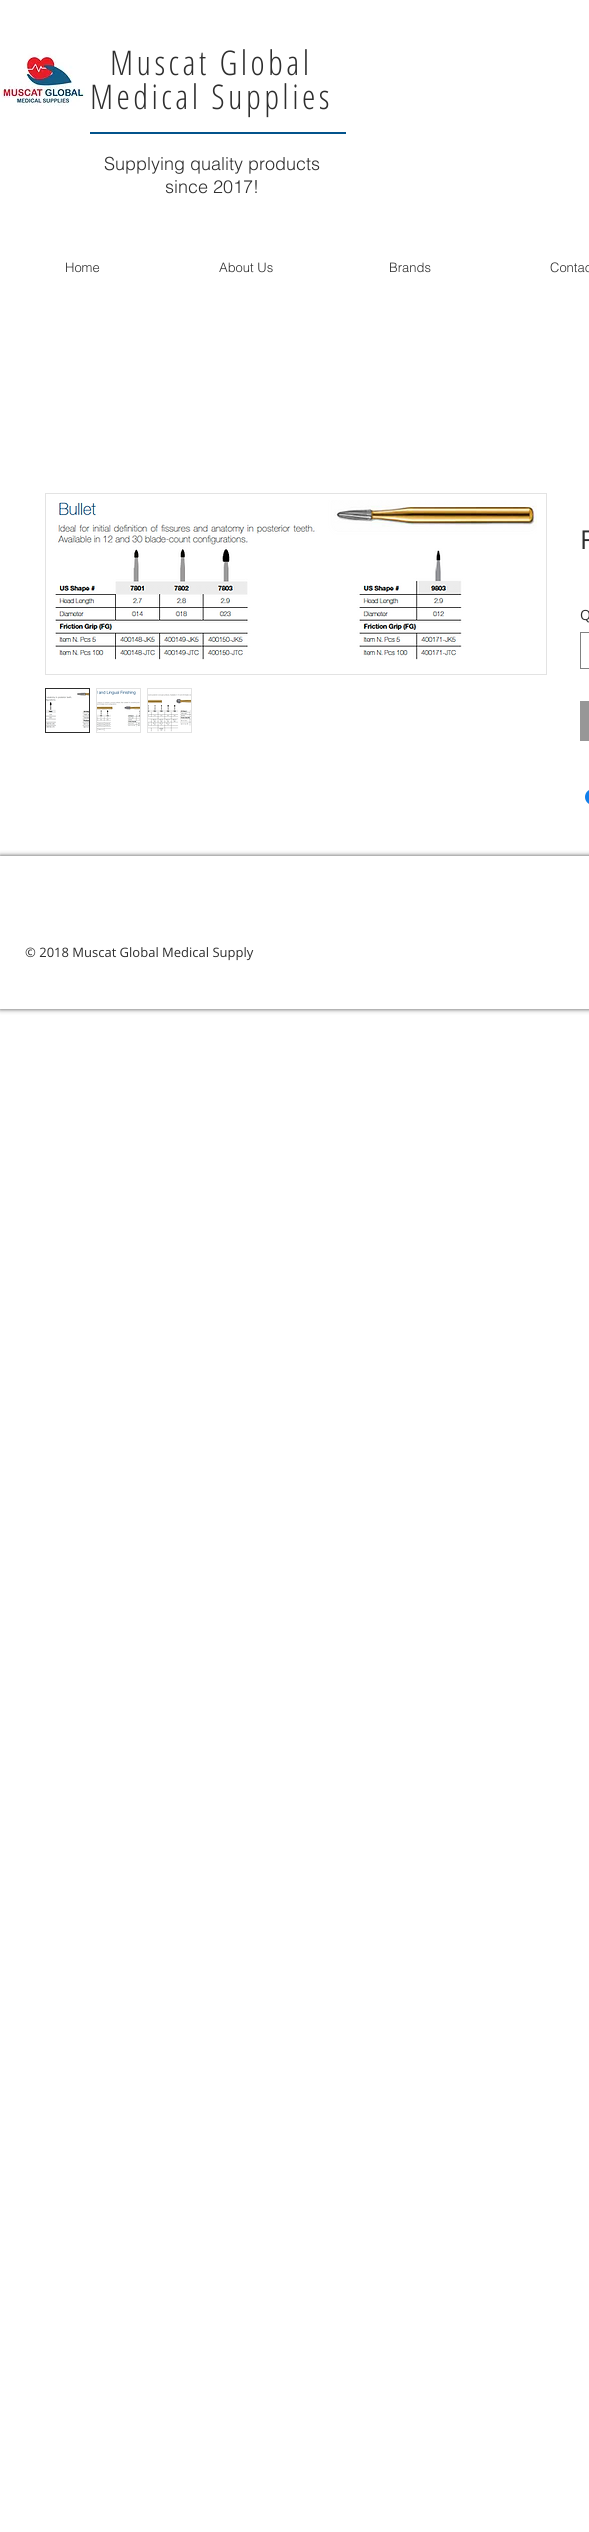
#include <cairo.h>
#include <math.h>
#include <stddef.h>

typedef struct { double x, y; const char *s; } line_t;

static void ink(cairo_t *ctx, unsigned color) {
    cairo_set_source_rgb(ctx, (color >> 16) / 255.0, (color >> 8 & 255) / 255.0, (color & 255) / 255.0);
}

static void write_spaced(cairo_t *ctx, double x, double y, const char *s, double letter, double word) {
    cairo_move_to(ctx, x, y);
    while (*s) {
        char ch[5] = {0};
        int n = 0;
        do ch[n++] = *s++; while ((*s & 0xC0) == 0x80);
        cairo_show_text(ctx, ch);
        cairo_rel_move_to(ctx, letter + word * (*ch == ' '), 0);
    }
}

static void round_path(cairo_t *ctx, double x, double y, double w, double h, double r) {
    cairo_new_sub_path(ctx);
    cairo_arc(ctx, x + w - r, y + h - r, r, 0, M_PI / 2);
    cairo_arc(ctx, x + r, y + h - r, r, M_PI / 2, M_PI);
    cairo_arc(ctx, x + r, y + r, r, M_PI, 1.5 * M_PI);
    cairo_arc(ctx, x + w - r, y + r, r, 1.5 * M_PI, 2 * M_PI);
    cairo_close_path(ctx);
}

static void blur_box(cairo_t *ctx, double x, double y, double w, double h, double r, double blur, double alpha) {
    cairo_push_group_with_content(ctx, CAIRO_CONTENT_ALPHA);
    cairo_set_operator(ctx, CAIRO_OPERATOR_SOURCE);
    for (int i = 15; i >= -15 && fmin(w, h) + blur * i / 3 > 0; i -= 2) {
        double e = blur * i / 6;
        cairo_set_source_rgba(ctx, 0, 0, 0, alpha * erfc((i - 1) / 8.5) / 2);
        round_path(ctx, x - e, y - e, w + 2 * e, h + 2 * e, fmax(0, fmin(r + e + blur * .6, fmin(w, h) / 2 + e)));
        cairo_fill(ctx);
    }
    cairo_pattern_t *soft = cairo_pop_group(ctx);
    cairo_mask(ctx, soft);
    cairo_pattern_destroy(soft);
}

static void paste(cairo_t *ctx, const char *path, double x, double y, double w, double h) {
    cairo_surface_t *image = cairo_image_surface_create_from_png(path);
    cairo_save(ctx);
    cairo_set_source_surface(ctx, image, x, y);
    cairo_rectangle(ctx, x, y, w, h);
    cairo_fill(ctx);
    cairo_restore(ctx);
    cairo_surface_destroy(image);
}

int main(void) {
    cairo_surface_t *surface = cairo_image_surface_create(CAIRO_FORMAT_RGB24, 589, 2532);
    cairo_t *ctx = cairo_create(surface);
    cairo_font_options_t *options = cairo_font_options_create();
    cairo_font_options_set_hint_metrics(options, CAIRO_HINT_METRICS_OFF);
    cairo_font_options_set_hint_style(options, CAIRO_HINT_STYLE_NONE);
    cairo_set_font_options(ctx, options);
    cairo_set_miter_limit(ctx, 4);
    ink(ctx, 0xFFFFFF);
    cairo_paint(ctx);
    paste(ctx, "media/1.png", 0, 50, 85, 56);
    cairo_select_font_face(ctx, "Open Sans Condensed Light", CAIRO_FONT_SLANT_NORMAL, CAIRO_FONT_WEIGHT_NORMAL);
    cairo_set_font_size(ctx, 34);
    ink(ctx, 0x2D2D2D);
    write_spaced(ctx, 110, 75, "Muscat Global", 3.4, 0);
    write_spaced(ctx, 90, 109, "Medical Supplies", 3.4, 0);
    ink(ctx, 0x03538C);
    cairo_rectangle(ctx, 90, 132, 256, 2);
    cairo_fill(ctx);
    cairo_select_font_face(ctx, "helvetica Light", CAIRO_FONT_SLANT_NORMAL, CAIRO_FONT_WEIGHT_NORMAL);
    cairo_set_font_size(ctx, 18);
    ink(ctx, 0x2D2D2D);
    cairo_move_to(ctx, 104, 170);
    cairo_show_text(ctx, "Supplying quality products");
    cairo_move_to(ctx, 165, 193);
    cairo_show_text(ctx, "since 2017!");
    cairo_set_font_size(ctx, 13);
    {
        static const line_t items[] = {
            {65, 272, "Home"},
            {219, 272, "About Us"},
            {389, 272, "Brands"},
            {550, 272, "Contac"},
        };
        for (size_t i = 0; i < sizeof items / sizeof *items; i++) {
            cairo_move_to(ctx, items[i].x, items[i].y);
            cairo_show_text(ctx, items[i].s);
        }
    }
    cairo_rectangle(ctx, 45.5, 493.5, 501, 181);
    ink(ctx, 0xE3E3E3);
    cairo_set_line_width(ctx, 1);
    cairo_stroke(ctx);
    paste(ctx, "media/2.png", 53, 500, 484, 160);
    cairo_rectangle(ctx, 45.5, 688.5, 44, 44);
    ink(ctx, 0x2D2D2D);
    cairo_stroke(ctx);
    paste(ctx, "media/3.png", 46, 689, 43, 43);
    ink(ctx, 0xE3E3E3);
    cairo_rectangle(ctx, 96, 688, 45, 45);
    cairo_fill(ctx);
    paste(ctx, "media/4.png", 97, 689, 43, 43);
    cairo_rectangle(ctx, 147, 688, 45, 45);
    cairo_fill(ctx);
    paste(ctx, "media/5.png", 148, 689, 43, 43);
    cairo_select_font_face(ctx, "Open Sans", CAIRO_FONT_SLANT_NORMAL, CAIRO_FONT_WEIGHT_NORMAL);
    cairo_set_font_size(ctx, 26);
    ink(ctx, 0x2D2D2D);
    cairo_move_to(ctx, 580, 549);
    cairo_show_text(ctx, "F");
    cairo_set_font_size(ctx, 14);
    cairo_move_to(ctx, 580, 620);
    cairo_show_text(ctx, "Q");
    cairo_rectangle(ctx, 580.5, 632.5, 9, 36);
    ink(ctx, 0x818181);
    cairo_stroke(ctx);
    ink(ctx, 0x979797);
    cairo_rectangle(ctx, 580, 701, 9, 40);
    cairo_fill(ctx);
    paste(ctx, "media/6.png", 585, 790, 4, 14);
    cairo_save(ctx);
    cairo_set_fill_rule(ctx, CAIRO_FILL_RULE_EVEN_ODD);
    cairo_new_path(ctx);
    cairo_move_to(ctx, 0, 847);
    cairo_line_to(ctx, 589, 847);
    cairo_line_to(ctx, 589, 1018);
    cairo_line_to(ctx, 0, 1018);
    cairo_close_path(ctx);
    cairo_move_to(ctx, 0, 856);
    cairo_line_to(ctx, 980, 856);
    cairo_line_to(ctx, 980, 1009);
    cairo_line_to(ctx, 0, 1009);
    cairo_close_path(ctx);
    cairo_clip(ctx);
    ink(ctx, 0x000000);
    blur_box(ctx, 0, 856, 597, 153, 0, 2.5, 0.7);
    cairo_restore(ctx);
    cairo_set_font_size(ctx, 13);
    ink(ctx, 0x2D2D2D);
    cairo_move_to(ctx, 25, 957);
    cairo_show_text(ctx, "© 2018 Muscat Global Medical Supply");
    cairo_surface_write_to_png(surface, "image.png");
    cairo_font_options_destroy(options);
    cairo_destroy(ctx);
    cairo_surface_destroy(surface);
    return 0;
}
